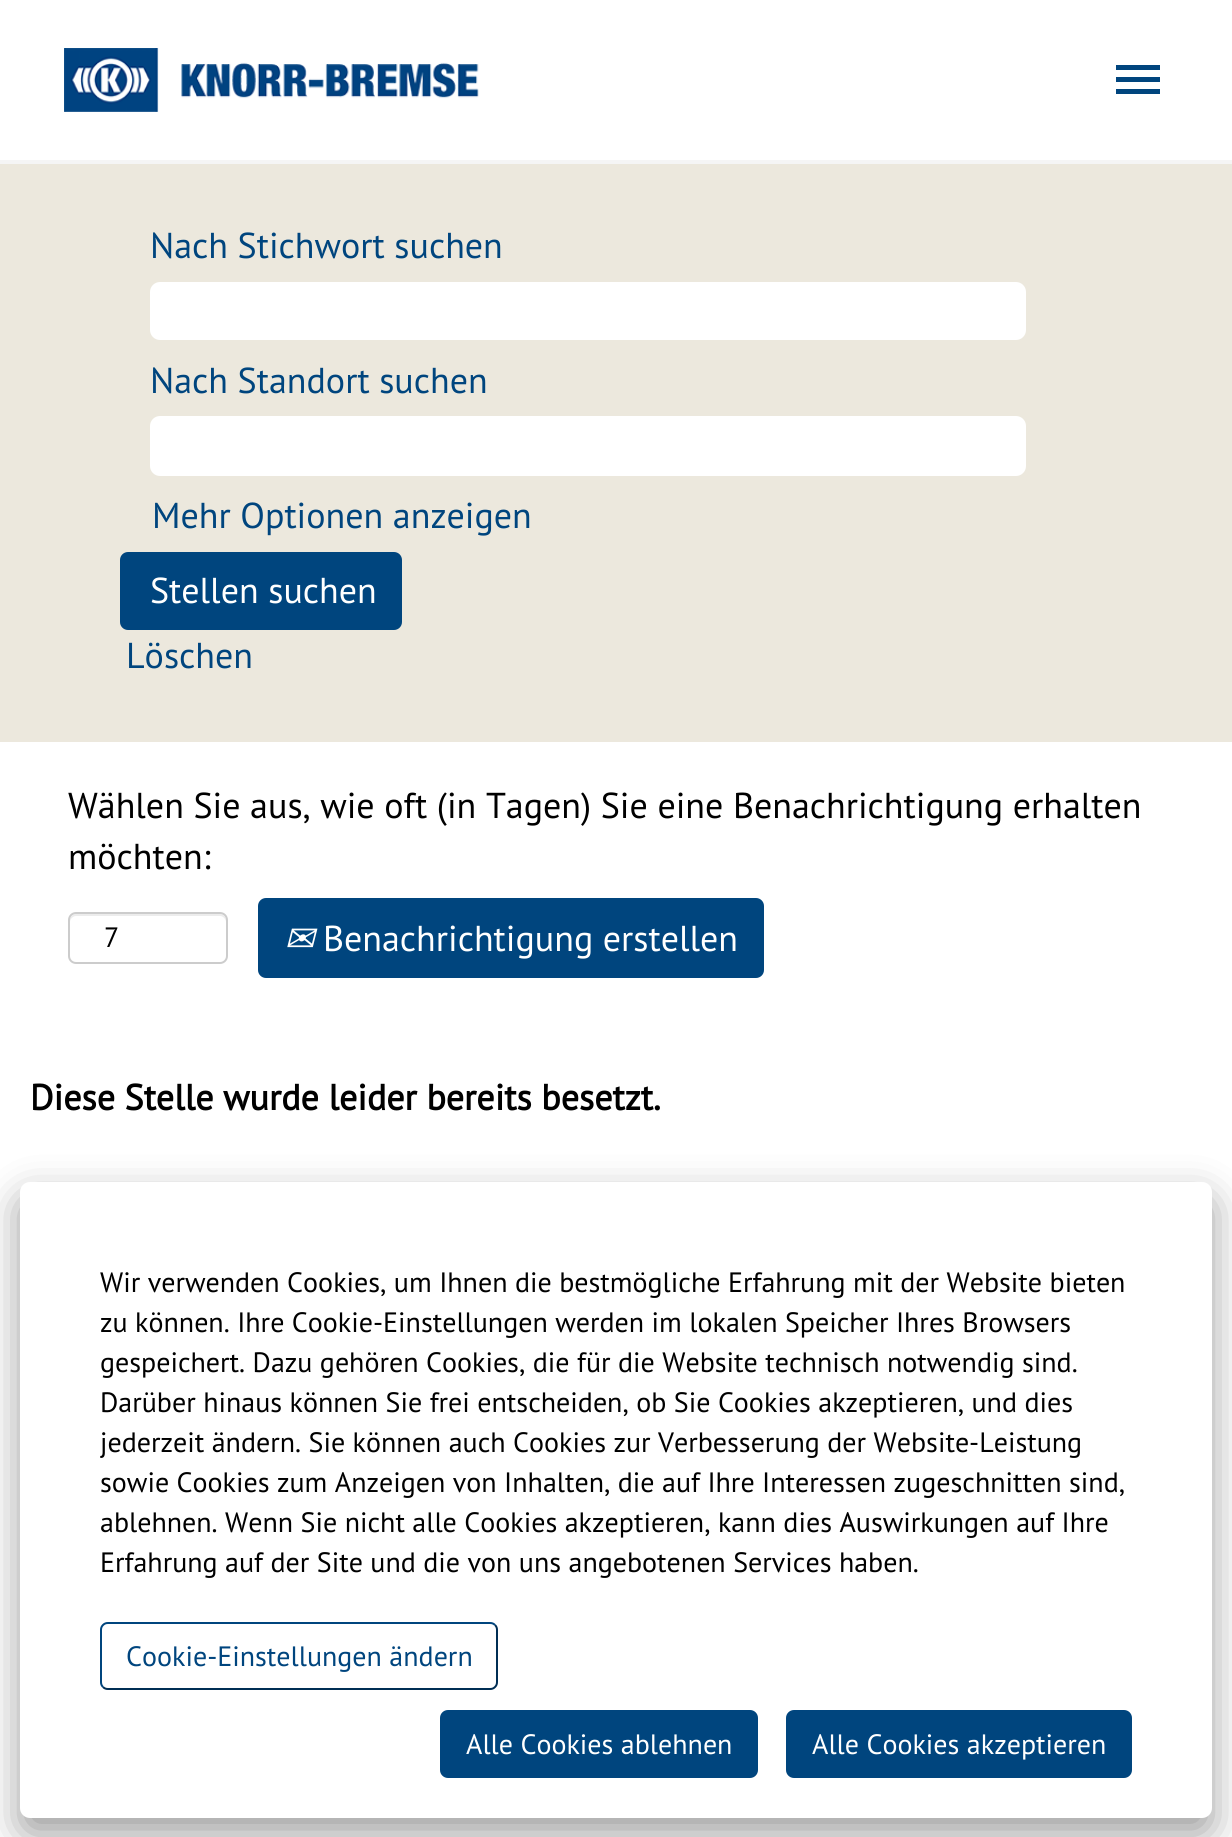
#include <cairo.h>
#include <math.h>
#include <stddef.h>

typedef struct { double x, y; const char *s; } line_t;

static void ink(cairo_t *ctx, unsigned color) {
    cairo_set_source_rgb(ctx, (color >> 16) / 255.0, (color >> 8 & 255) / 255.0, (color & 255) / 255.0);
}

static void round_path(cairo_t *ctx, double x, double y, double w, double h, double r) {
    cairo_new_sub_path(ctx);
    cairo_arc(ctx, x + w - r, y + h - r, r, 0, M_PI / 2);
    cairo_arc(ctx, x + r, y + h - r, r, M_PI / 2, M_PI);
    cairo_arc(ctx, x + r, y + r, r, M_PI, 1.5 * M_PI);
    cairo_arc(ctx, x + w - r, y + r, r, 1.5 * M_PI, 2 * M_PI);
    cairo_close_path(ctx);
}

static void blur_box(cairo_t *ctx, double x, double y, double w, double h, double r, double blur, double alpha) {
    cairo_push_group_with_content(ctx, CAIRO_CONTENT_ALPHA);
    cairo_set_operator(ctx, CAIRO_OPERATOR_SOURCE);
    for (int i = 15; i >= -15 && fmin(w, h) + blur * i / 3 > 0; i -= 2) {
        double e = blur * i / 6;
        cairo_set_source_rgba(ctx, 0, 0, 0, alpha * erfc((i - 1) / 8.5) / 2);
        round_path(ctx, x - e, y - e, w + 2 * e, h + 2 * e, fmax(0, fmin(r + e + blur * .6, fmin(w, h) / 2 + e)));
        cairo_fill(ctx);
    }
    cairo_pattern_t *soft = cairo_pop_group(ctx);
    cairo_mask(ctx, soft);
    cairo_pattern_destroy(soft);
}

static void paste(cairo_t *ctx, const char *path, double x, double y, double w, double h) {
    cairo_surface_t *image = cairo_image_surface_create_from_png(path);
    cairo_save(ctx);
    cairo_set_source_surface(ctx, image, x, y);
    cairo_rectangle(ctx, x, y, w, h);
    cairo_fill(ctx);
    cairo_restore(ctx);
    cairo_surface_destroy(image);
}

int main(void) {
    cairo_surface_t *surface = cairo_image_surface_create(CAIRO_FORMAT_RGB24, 1232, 1837);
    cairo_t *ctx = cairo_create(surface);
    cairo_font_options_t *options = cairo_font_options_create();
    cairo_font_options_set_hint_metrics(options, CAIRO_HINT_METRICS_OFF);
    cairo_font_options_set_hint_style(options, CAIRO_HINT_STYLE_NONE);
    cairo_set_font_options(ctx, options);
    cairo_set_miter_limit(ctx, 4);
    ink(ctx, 0xFFFFFF);
    cairo_paint(ctx);
    ink(ctx, 0xF5F5F5);
    cairo_rectangle(ctx, 0, 160, 1232, 4);
    cairo_fill(ctx);
    paste(ctx, "media/1.png", 64, 48, 415, 64);
    ink(ctx, 0x00457E);
    cairo_new_path(ctx);
    cairo_move_to(ctx, 1116, 94);
    cairo_line_to(ctx, 1116, 89);
    cairo_line_to(ctx, 1160, 89);
    cairo_line_to(ctx, 1160, 94);
    cairo_close_path(ctx);
    cairo_move_to(ctx, 1116, 82);
    cairo_line_to(ctx, 1116, 77);
    cairo_line_to(ctx, 1160, 77);
    cairo_line_to(ctx, 1160, 82);
    cairo_close_path(ctx);
    cairo_move_to(ctx, 1116, 70);
    cairo_line_to(ctx, 1116, 65);
    cairo_line_to(ctx, 1160, 65);
    cairo_line_to(ctx, 1160, 70);
    cairo_close_path(ctx);
    cairo_fill(ctx);
    ink(ctx, 0xECE8DD);
    cairo_rectangle(ctx, 0, 164, 1232, 578);
    cairo_fill(ctx);
    cairo_select_font_face(ctx, "PT Sans", CAIRO_FONT_SLANT_NORMAL, CAIRO_FONT_WEIGHT_NORMAL);
    cairo_set_font_size(ctx, 36);
    ink(ctx, 0x00457E);
    cairo_move_to(ctx, 150, 258);
    cairo_show_text(ctx, "Nach Stichwort suchen");
    ink(ctx, 0xFFFFFF);
    round_path(ctx, 150, 282, 876, 58, 10);
    cairo_fill(ctx);
    ink(ctx, 0x00457E);
    cairo_move_to(ctx, 150, 393);
    cairo_show_text(ctx, "Nach Standort suchen");
    ink(ctx, 0xFFFFFF);
    round_path(ctx, 150, 416, 876, 60, 10);
    cairo_fill(ctx);
    ink(ctx, 0x00457E);
    cairo_move_to(ctx, 152, 528);
    cairo_show_text(ctx, "Mehr Optionen anzeigen");
    round_path(ctx, 120, 552, 282, 78, 8);
    cairo_fill(ctx);
    ink(ctx, 0xFFFFFF);
    cairo_move_to(ctx, 150, 603);
    cairo_show_text(ctx, "Stellen suchen");
    ink(ctx, 0x00457E);
    cairo_move_to(ctx, 126, 668);
    cairo_show_text(ctx, "Löschen");
    ink(ctx, 0x000000);
    cairo_move_to(ctx, 68, 818);
    cairo_show_text(ctx, "Wählen Sie aus, wie oft (in Tagen) Sie eine Benachrichtigung erhalten");
    cairo_move_to(ctx, 68, 869);
    cairo_show_text(ctx, "möchten:");
    ink(ctx, 0xECECEC);
    cairo_new_path(ctx);
    cairo_move_to(ctx, 76, 916);
    cairo_line_to(ctx, 220, 916);
    cairo_curve_to(ctx, 223, 916, 226, 919, 226, 922);
    cairo_line_to(ctx, 226, 920);
    cairo_curve_to(ctx, 226, 917, 223, 914, 220, 914);
    cairo_line_to(ctx, 76, 914);
    cairo_curve_to(ctx, 73, 914, 70, 917, 70, 920);
    cairo_line_to(ctx, 70, 922);
    cairo_curve_to(ctx, 70, 919, 73, 916, 76, 916);
    cairo_close_path(ctx);
    cairo_fill(ctx);
    round_path(ctx, 69, 913, 158, 50, 7);
    ink(ctx, 0xCCCCCC);
    cairo_stroke(ctx);
    cairo_set_font_size(ctx, 28);
    ink(ctx, 0x000000);
    cairo_move_to(ctx, 104, 947);
    cairo_show_text(ctx, "7");
    ink(ctx, 0x00457E);
    round_path(ctx, 258, 898, 506, 80, 8);
    cairo_fill(ctx);
    cairo_select_font_face(ctx, "DejaVu Sans", CAIRO_FONT_SLANT_ITALIC, CAIRO_FONT_WEIGHT_NORMAL);
    cairo_set_font_size(ctx, 36);
    ink(ctx, 0xFFFFFF);
    cairo_move_to(ctx, 284, 951);
    cairo_show_text(ctx, "✉");
    cairo_select_font_face(ctx, "PT Sans", CAIRO_FONT_SLANT_NORMAL, CAIRO_FONT_WEIGHT_NORMAL);
    cairo_move_to(ctx, 323, 951);
    cairo_show_text(ctx, "Benachrichtigung erstellen");
    cairo_select_font_face(ctx, "PT Sans", CAIRO_FONT_SLANT_NORMAL, CAIRO_FONT_WEIGHT_BOLD);
    ink(ctx, 0x000000);
    cairo_move_to(ctx, 30, 1110);
    cairo_show_text(ctx, "Diese Stelle wurde leider bereits besetzt.");
    ink(ctx, 0x000000);
    blur_box(ctx, 20, 1198, 1192, 636, 10, 20, 0.39);
    ink(ctx, 0xFFFFFF);
    round_path(ctx, 20, 1182, 1192, 636, 10);
    cairo_fill(ctx);
    cairo_select_font_face(ctx, "PT Sans", CAIRO_FONT_SLANT_NORMAL, CAIRO_FONT_WEIGHT_NORMAL);
    cairo_set_font_size(ctx, 28);
    ink(ctx, 0x000000);
    {
        static const line_t items[] = {
            {100, 1292, "Wir verwenden Cookies, um Ihnen die bestmögliche Erfahrung mit der Website bieten"},
            {100, 1332, "zu können. Ihre Cookie-Einstellungen werden im lokalen Speicher Ihres Browsers"},
            {100, 1372, "gespeichert. Dazu gehören Cookies, die für die Website technisch notwendig sind."},
            {100, 1412, "Darüber hinaus können Sie frei entscheiden, ob Sie Cookies akzeptieren, und dies"},
            {100, 1452, "jederzeit ändern. Sie können auch Cookies zur Verbesserung der Website-Leistung"},
            {100, 1492, "sowie Cookies zum Anzeigen von Inhalten, die auf Ihre Interessen zugeschnitten sind,"},
            {100, 1532, "ablehnen. Wenn Sie nicht alle Cookies akzeptieren, kann dies Auswirkungen auf Ihre"},
            {100, 1572, "Erfahrung auf der Site und die von uns angebotenen Services haben."},
        };
        for (size_t i = 0; i < sizeof items / sizeof *items; i++) {
            cairo_move_to(ctx, items[i].x, items[i].y);
            cairo_show_text(ctx, items[i].s);
        }
    }
    cairo_new_path(ctx);
    cairo_move_to(ctx, 495, 1625);
    cairo_curve_to(ctx, 496.5, 1626.5, 497, 1628, 497, 1630);
    cairo_line_to(ctx, 497, 1682);
    cairo_curve_to(ctx, 497, 1684, 496.5, 1685.5, 495, 1687);
    cairo_curve_to(ctx, 493.5, 1688.5, 492, 1689, 490, 1689);
    cairo_line_to(ctx, 108, 1689);
    cairo_curve_to(ctx, 106, 1689, 104.5, 1688.5, 103, 1687);
    ink(ctx, 0x002E54);
    cairo_stroke(ctx);
    cairo_new_path(ctx);
    cairo_move_to(ctx, 103, 1687);
    cairo_curve_to(ctx, 101.5, 1685.5, 101, 1684, 101, 1682);
    cairo_line_to(ctx, 101, 1630);
    cairo_curve_to(ctx, 101, 1628, 101.5, 1626.5, 103, 1625);
    cairo_curve_to(ctx, 104.5, 1623.5, 106, 1623, 108, 1623);
    cairo_line_to(ctx, 490, 1623);
    cairo_curve_to(ctx, 492, 1623, 493.5, 1623.5, 495, 1625);
    ink(ctx, 0x00457E);
    cairo_stroke(ctx);
    cairo_move_to(ctx, 126, 1666);
    cairo_show_text(ctx, "Cookie-Einstellungen ändern");
    round_path(ctx, 440, 1710, 318, 68, 8);
    cairo_fill(ctx);
    ink(ctx, 0xFFFFFF);
    cairo_move_to(ctx, 466, 1754);
    cairo_show_text(ctx, "Alle Cookies ablehnen");
    ink(ctx, 0x00457E);
    round_path(ctx, 786, 1710, 346, 68, 8);
    cairo_fill(ctx);
    ink(ctx, 0xFFFFFF);
    cairo_move_to(ctx, 812, 1754);
    cairo_show_text(ctx, "Alle Cookies akzeptieren");
    cairo_surface_write_to_png(surface, "image.png");
    cairo_font_options_destroy(options);
    cairo_destroy(ctx);
    cairo_surface_destroy(surface);
    return 0;
}
